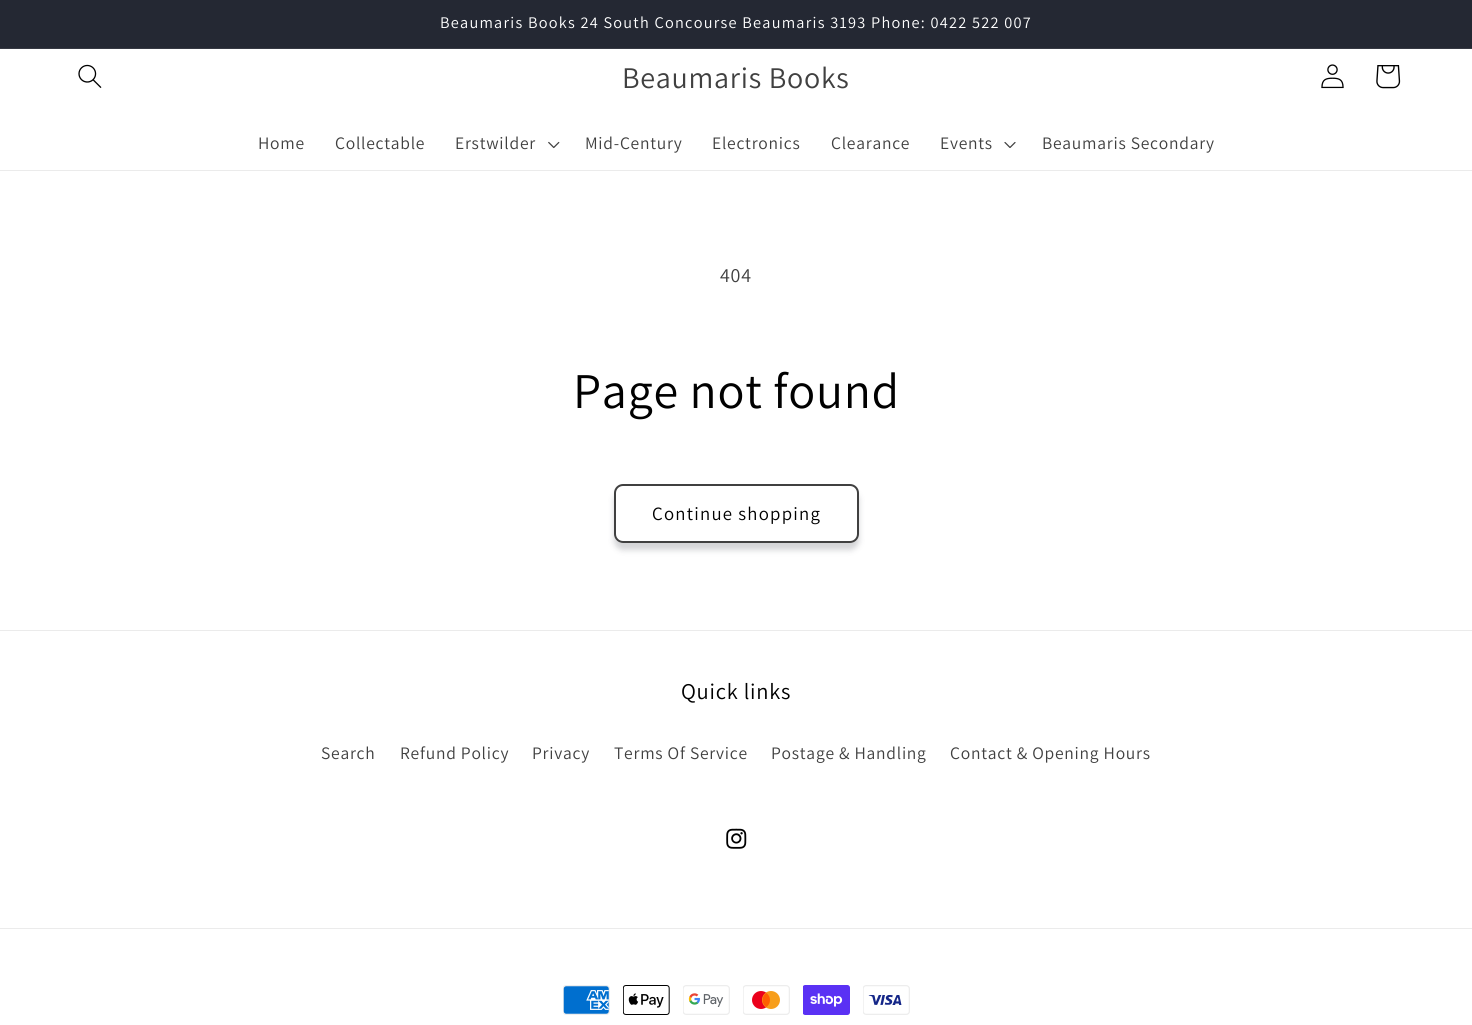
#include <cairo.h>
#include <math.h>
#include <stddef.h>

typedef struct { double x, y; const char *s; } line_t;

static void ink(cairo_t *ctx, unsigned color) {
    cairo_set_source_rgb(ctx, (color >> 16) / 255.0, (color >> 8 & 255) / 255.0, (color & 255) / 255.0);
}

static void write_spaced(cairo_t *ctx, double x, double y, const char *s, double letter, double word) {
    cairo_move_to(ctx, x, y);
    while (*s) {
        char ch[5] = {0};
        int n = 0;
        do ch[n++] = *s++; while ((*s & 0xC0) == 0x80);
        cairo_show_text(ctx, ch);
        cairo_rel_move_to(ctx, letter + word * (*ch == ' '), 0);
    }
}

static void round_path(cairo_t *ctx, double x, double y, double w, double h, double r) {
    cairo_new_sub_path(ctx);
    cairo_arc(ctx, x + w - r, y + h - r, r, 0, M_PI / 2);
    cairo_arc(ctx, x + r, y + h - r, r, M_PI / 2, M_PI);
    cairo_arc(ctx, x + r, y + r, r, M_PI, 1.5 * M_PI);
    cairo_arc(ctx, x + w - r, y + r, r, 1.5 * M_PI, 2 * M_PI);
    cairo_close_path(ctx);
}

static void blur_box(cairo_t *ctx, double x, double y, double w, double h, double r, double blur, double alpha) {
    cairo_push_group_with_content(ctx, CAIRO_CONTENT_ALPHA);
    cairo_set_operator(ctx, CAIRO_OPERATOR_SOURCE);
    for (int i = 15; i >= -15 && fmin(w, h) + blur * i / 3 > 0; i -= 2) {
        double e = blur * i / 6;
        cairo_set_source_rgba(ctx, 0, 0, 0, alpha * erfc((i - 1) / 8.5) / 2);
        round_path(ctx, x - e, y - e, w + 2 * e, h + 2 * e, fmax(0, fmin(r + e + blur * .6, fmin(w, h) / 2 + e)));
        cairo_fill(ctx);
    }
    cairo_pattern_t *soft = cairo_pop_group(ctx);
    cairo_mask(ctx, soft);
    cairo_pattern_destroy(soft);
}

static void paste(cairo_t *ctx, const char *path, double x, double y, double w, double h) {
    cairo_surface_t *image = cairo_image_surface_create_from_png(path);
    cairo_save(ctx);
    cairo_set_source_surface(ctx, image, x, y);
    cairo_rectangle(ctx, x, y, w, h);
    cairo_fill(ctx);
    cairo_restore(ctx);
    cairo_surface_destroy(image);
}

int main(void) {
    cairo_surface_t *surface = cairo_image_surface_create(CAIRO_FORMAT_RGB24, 1472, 1025);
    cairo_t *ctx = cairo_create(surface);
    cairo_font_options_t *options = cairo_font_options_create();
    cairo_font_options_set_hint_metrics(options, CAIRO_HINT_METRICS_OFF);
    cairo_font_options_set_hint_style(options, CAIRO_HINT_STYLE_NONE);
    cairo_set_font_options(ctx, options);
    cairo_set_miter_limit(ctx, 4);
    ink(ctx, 0xFFFFFF);
    cairo_paint(ctx);
    ink(ctx, 0x242833);
    cairo_rectangle(ctx, 0, 0, 1472, 48);
    cairo_fill(ctx);
    ink(ctx, 0x363943);
    cairo_rectangle(ctx, 0, 48, 1472, 1);
    cairo_fill(ctx);
    cairo_select_font_face(ctx, "Assistant", CAIRO_FONT_SLANT_NORMAL, CAIRO_FONT_WEIGHT_NORMAL);
    cairo_set_font_size(ctx, 16.25);
    ink(ctx, 0xFFFFFF);
    write_spaced(ctx, 440, 28, "Beaumaris Books 24 South Concourse Beaumaris 3193 Phone: 0422 522 007", 1.25, 0);
    ink(ctx, 0xEBEBEB);
    cairo_rectangle(ctx, 0, 170, 1472, 1);
    cairo_fill(ctx);
    paste(ctx, "media/1.png", 78, 64, 24, 24);
    cairo_set_font_size(ctx, 30);
    ink(ctx, 0x404040);
    write_spaced(ctx, 622, 88, "Beaumaris Books", 0.75, 0);
    paste(ctx, "media/2.png", 1321, 64, 23, 25);
    paste(ctx, "media/3.png", 1376, 65, 25, 24);
    cairo_set_font_size(ctx, 17.5);
    {
        static const line_t items[] = {
            {258, 149, "Home"},
            {335, 149, "Collectable"},
            {455, 149, "Erstwilder"},
        };
        for (size_t i = 0; i < sizeof items / sizeof *items; i++) {
            write_spaced(ctx, items[i].x, items[i].y, items[i].s, 0.75, 0);
        }
    }
    paste(ctx, "media/4.png", 548, 141, 12, 8);
    {
        static const line_t items[] = {
            {585, 149, "Mid-Century"},
            {712, 149, "Electronics"},
            {831, 149, "Clearance"},
            {940, 149, "Events"},
        };
        for (size_t i = 0; i < sizeof items / sizeof *items; i++) {
            write_spaced(ctx, items[i].x, items[i].y, items[i].s, 0.75, 0);
        }
    }
    paste(ctx, "media/5.png", 1004, 142, 12, 6);
    write_spaced(ctx, 1042, 149, "Beaumaris Secondary", 0.75, 0);
    cairo_set_font_size(ctx, 20);
    write_spaced(ctx, 720, 282, "404", 0.75, 0);
    cairo_set_font_size(ctx, 50);
    ink(ctx, 0x000000);
    write_spaced(ctx, 573, 408, "Page not found", 0.75, 0);
    ink(ctx, 0x242833);
    blur_box(ctx, 614, 491, 245, 59, 9, 3, 0.2);
    ink(ctx, 0xFFFFFF);
    round_path(ctx, 614, 484, 245, 59, 9);
    cairo_fill(ctx);
    round_path(ctx, 614.5, 484.5, 244, 58, 8.5);
    cairo_set_line_width(ctx, 1);
    cairo_stroke(ctx);
    round_path(ctx, 615, 485, 243, 57, 8);
    cairo_set_source_rgba(ctx, 0, 0, 0, 0.75);
    cairo_set_line_width(ctx, 2);
    cairo_stroke(ctx);
    cairo_set_font_size(ctx, 18.75);
    ink(ctx, 0x000000);
    write_spaced(ctx, 652, 520, "Continue shopping", 1.25, 0);
    ink(ctx, 0xEBEBEB);
    cairo_rectangle(ctx, 0, 630, 1472, 1);
    cairo_fill(ctx);
    cairo_set_font_size(ctx, 22.5);
    ink(ctx, 0x000000);
    write_spaced(ctx, 681, 699, "Quick links", 0.75, 0);
    cairo_set_font_size(ctx, 17.5);
    ink(ctx, 0x404040);
    {
        static const line_t items[] = {
            {321, 759, "Search"},
            {400, 759, "Refund Policy"},
            {532, 759, "Privacy"},
            {614, 759, "Terms Of Service"},
            {771, 759, "Postage & Handling"},
            {950, 759, "Contact & Opening Hours"},
        };
        for (size_t i = 0; i < sizeof items / sizeof *items; i++) {
            write_spaced(ctx, items[i].x, items[i].y, items[i].s, 0.75, 0);
        }
    }
    paste(ctx, "media/6.png", 726, 828, 21, 21);
    ink(ctx, 0xEBEBEB);
    cairo_rectangle(ctx, 0, 928, 1472, 1);
    cairo_fill(ctx);
    paste(ctx, "media/7.png", 563, 985, 47, 30);
    paste(ctx, "media/8.png", 623, 985, 47, 30);
    paste(ctx, "media/9.png", 683, 985, 47, 30);
    paste(ctx, "media/10.png", 743, 985, 47, 30);
    paste(ctx, "media/11.png", 803, 985, 47, 30);
    paste(ctx, "media/12.png", 863, 985, 47, 30);
    cairo_surface_write_to_png(surface, "image.png");
    cairo_font_options_destroy(options);
    cairo_destroy(ctx);
    cairo_surface_destroy(surface);
    return 0;
}
